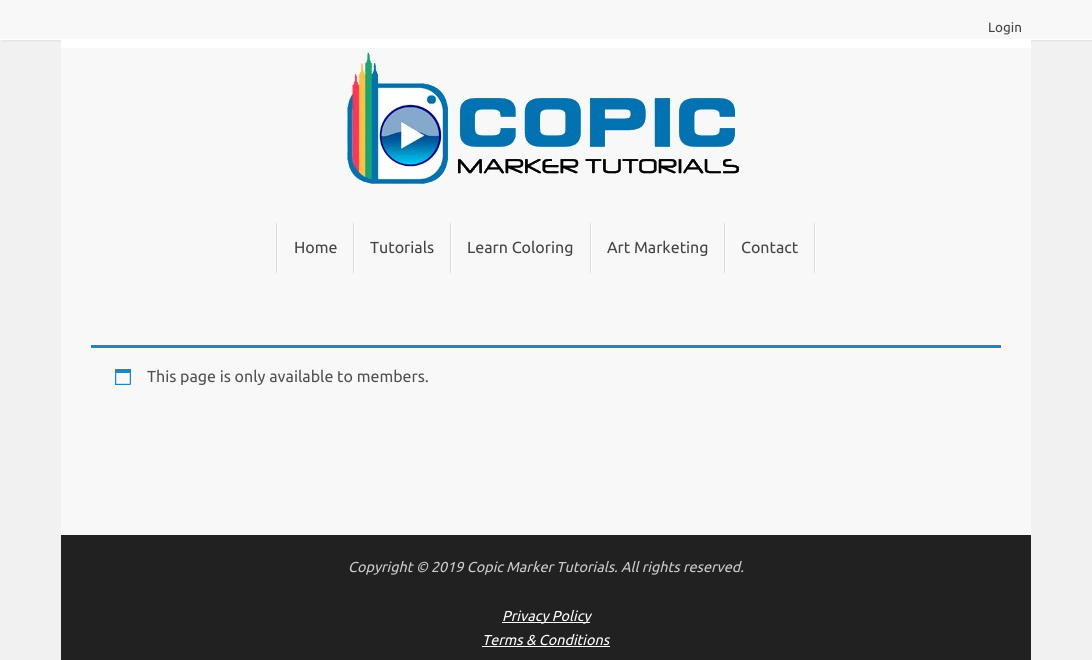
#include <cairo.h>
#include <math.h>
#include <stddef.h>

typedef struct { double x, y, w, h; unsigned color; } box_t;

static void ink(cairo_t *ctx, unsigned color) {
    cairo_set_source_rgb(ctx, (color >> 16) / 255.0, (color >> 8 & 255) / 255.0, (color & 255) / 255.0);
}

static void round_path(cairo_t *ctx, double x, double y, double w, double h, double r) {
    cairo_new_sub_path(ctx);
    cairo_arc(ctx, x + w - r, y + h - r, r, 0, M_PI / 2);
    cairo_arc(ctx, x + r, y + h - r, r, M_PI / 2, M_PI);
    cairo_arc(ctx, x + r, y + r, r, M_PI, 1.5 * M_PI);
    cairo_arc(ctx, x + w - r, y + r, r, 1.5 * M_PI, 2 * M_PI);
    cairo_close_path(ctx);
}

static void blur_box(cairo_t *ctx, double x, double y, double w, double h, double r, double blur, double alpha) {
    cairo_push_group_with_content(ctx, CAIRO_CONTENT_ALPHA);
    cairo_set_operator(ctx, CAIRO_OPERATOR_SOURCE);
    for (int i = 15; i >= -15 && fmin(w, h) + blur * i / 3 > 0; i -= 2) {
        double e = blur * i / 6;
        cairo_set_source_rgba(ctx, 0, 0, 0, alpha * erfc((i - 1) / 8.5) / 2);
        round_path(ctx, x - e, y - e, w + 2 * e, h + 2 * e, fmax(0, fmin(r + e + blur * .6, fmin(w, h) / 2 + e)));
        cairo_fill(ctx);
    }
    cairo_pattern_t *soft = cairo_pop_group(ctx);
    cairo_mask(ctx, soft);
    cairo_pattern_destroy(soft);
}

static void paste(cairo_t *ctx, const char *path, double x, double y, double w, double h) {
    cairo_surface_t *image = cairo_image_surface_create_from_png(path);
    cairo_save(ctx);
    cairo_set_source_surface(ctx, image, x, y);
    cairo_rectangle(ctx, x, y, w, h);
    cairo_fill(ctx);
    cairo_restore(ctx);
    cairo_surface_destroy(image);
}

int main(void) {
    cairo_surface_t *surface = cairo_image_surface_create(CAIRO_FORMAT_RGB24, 1092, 660);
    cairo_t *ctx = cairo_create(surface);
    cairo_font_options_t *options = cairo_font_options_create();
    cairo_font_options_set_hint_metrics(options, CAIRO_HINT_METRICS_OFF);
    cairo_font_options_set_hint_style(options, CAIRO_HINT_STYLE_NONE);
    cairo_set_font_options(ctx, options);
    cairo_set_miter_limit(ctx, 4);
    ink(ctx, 0xF1F1F1);
    cairo_paint(ctx);
    ink(ctx, 0xD0D0D0);
    blur_box(ctx, 3, 0, 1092, 40, 0, 1.5, 1);
    ink(ctx, 0xF8F8F8);
    cairo_rectangle(ctx, 0, 0, 1092, 39);
    cairo_fill(ctx);
    ink(ctx, 0xFFFFFF);
    cairo_rectangle(ctx, 0, 39, 1092, 1);
    cairo_fill(ctx);
    cairo_select_font_face(ctx, "Ubuntu", CAIRO_FONT_SLANT_NORMAL, CAIRO_FONT_WEIGHT_NORMAL);
    cairo_set_font_size(ctx, 13.5);
    ink(ctx, 0x444444);
    cairo_move_to(ctx, 988, 32);
    cairo_show_text(ctx, "Login");
    ink(ctx, 0xFFFFFF);
    cairo_rectangle(ctx, 61, 40, 970, 8);
    cairo_fill(ctx);
    paste(ctx, "media/1.png", 61, 48, 970, 175);
    {
        static const box_t items[] = {
            {61, 223, 970, 312, 0xF8F8F8},
            {276, 223, 1, 50, 0xDADADA},
            {277, 223, 1, 50, 0xFFFFFF},
            {354, 223, 1, 50, 0xFFFFFF},
            {353, 223, 1, 50, 0xDADADA},
        };
        for (size_t i = 0; i < sizeof items / sizeof *items; i++) {
            ink(ctx, items[i].color);
            cairo_rectangle(ctx, items[i].x, items[i].y, items[i].w, items[i].h);
            cairo_fill(ctx);
        }
    }
    cairo_set_font_size(ctx, 16);
    ink(ctx, 0x444444);
    cairo_move_to(ctx, 294, 253);
    cairo_show_text(ctx, "Home");
    ink(ctx, 0xFFFFFF);
    cairo_rectangle(ctx, 451, 223, 1, 50);
    cairo_fill(ctx);
    ink(ctx, 0xDADADA);
    cairo_rectangle(ctx, 450, 223, 1, 50);
    cairo_fill(ctx);
    ink(ctx, 0x444444);
    cairo_move_to(ctx, 370, 253);
    cairo_show_text(ctx, "Tutorials");
    ink(ctx, 0xFFFFFF);
    cairo_rectangle(ctx, 591, 223, 1, 50);
    cairo_fill(ctx);
    ink(ctx, 0xDADADA);
    cairo_rectangle(ctx, 590, 223, 1, 50);
    cairo_fill(ctx);
    ink(ctx, 0x444444);
    cairo_move_to(ctx, 467, 253);
    cairo_show_text(ctx, "Learn Coloring");
    ink(ctx, 0xFFFFFF);
    cairo_rectangle(ctx, 725, 223, 1, 50);
    cairo_fill(ctx);
    ink(ctx, 0xDADADA);
    cairo_rectangle(ctx, 724, 223, 1, 50);
    cairo_fill(ctx);
    ink(ctx, 0x444444);
    cairo_move_to(ctx, 607, 253);
    cairo_show_text(ctx, "Art Marketing");
    ink(ctx, 0xFFFFFF);
    cairo_rectangle(ctx, 815, 223, 1, 50);
    cairo_fill(ctx);
    ink(ctx, 0xDADADA);
    cairo_rectangle(ctx, 814, 223, 1, 50);
    cairo_fill(ctx);
    ink(ctx, 0x444444);
    cairo_move_to(ctx, 741, 253);
    cairo_show_text(ctx, "Contact");
    ink(ctx, 0x1E85BE);
    cairo_rectangle(ctx, 91, 345, 910, 3);
    cairo_fill(ctx);
    paste(ctx, "media/2.png", 115, 369, 16, 16);
    ink(ctx, 0x515151);
    cairo_move_to(ctx, 147, 382);
    cairo_show_text(ctx, "This page is only available to members.");
    ink(ctx, 0x212121);
    cairo_rectangle(ctx, 61, 535, 970, 125);
    cairo_fill(ctx);
    cairo_select_font_face(ctx, "Ubuntu", CAIRO_FONT_SLANT_ITALIC, CAIRO_FONT_WEIGHT_NORMAL);
    cairo_set_font_size(ctx, 14.4);
    ink(ctx, 0xCCCCCC);
    cairo_move_to(ctx, 348, 572);
    cairo_show_text(ctx, "Copyright © 2019 Copic Marker Tutorials. All rights reserved.");
    ink(ctx, 0xFFFFFF);
    cairo_rectangle(ctx, 502, 622, 88, 1);
    cairo_fill(ctx);
    cairo_move_to(ctx, 502, 621);
    cairo_show_text(ctx, "Privacy Policy");
    cairo_move_to(ctx, 482, 645);
    cairo_show_text(ctx, "Terms & Conditions");
    cairo_rectangle(ctx, 482, 646, 128, 1);
    cairo_fill(ctx);
    cairo_surface_write_to_png(surface, "image.png");
    cairo_font_options_destroy(options);
    cairo_destroy(ctx);
    cairo_surface_destroy(surface);
    return 0;
}
